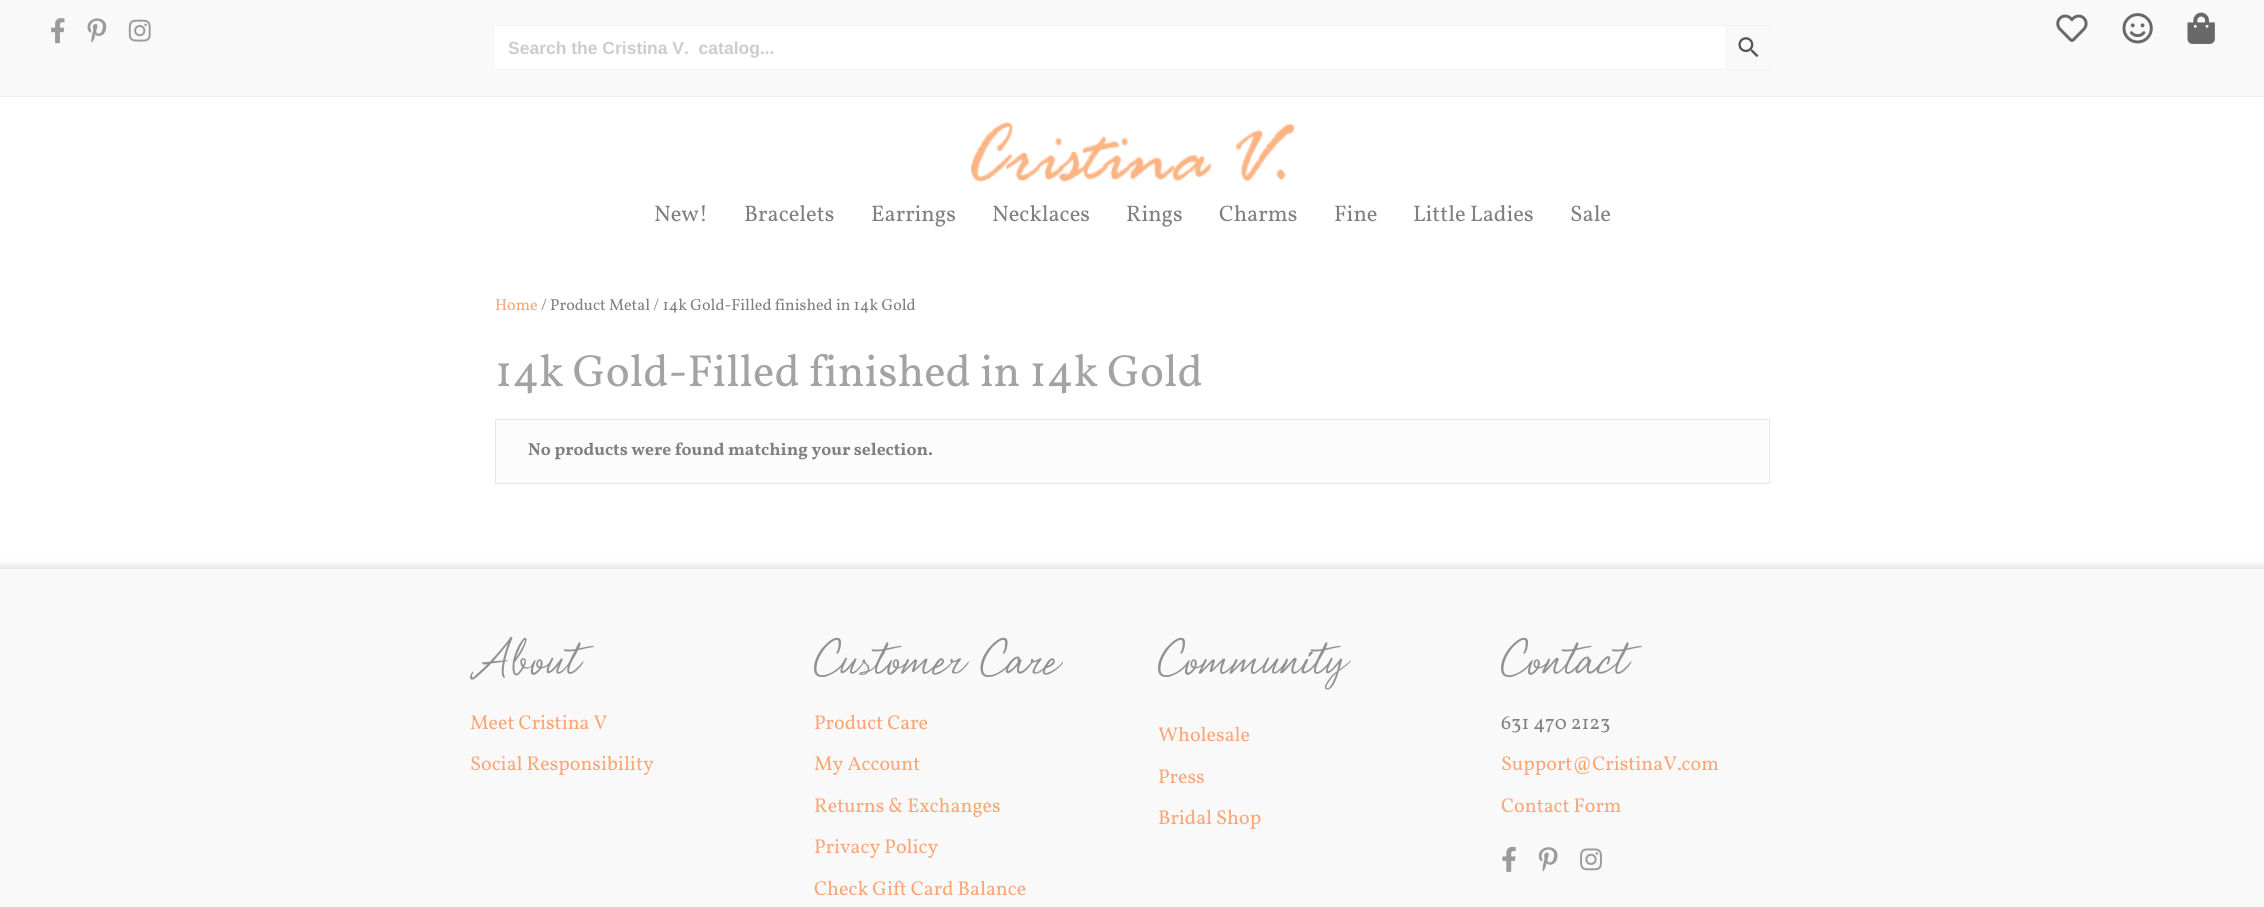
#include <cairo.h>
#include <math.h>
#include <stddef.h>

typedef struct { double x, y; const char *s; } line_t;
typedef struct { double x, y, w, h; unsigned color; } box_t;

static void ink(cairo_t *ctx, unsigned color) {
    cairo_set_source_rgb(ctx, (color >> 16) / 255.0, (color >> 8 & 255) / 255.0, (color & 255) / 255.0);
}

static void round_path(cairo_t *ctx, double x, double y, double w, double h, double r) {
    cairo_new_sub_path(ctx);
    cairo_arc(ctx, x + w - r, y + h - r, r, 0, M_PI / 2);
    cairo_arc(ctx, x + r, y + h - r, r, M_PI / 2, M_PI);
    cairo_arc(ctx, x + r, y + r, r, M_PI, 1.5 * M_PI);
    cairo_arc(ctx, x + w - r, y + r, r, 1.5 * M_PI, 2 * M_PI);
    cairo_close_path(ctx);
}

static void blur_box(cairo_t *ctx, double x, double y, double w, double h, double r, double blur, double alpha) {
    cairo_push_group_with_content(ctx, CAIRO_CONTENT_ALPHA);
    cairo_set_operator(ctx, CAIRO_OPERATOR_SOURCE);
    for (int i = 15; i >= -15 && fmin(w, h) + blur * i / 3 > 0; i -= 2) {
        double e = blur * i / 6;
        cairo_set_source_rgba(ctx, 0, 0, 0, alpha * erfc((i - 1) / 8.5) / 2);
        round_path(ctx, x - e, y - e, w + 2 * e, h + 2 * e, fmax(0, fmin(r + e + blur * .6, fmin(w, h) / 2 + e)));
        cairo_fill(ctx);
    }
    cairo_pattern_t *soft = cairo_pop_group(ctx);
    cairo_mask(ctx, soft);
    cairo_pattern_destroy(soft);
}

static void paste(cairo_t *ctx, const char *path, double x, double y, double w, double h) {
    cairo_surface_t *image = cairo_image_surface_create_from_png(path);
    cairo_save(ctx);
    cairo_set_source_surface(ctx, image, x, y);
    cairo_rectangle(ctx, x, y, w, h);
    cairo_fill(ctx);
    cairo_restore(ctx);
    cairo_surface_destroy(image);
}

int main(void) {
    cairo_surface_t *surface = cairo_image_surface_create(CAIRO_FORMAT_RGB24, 2264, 907);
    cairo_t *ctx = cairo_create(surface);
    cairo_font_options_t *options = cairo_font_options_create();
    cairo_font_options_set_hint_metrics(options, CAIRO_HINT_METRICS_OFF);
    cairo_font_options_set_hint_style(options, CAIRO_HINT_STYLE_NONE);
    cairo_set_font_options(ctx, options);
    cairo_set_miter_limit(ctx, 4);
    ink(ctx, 0xFFFFFF);
    cairo_paint(ctx);
    ink(ctx, 0xF9F9F9);
    cairo_rectangle(ctx, 0, 0, 2264, 96);
    cairo_fill(ctx);
    paste(ctx, "media/1.png", 51, 18, 14, 26);
    paste(ctx, "media/2.png", 87, 18, 20, 25);
    paste(ctx, "media/3.png", 128, 19, 23, 23);
    paste(ctx, "media/4.png", 2056, 14, 32, 28);
    paste(ctx, "media/5.png", 2122, 13, 31, 31);
    paste(ctx, "media/6.png", 2187, 12, 28, 32);
    {
        static const box_t items[] = {
            {494, 26, 1232, 43, 0xFFFFFF},
            {493, 25, 1233, 1, 0xF4F4F4},
            {493, 69, 1233, 1, 0xF4F4F4},
            {493, 25, 1, 45, 0xF4F4F4},
        };
        for (size_t i = 0; i < sizeof items / sizeof *items; i++) {
            ink(ctx, items[i].color);
            cairo_rectangle(ctx, items[i].x, items[i].y, items[i].w, items[i].h);
            cairo_fill(ctx);
        }
    }
    cairo_select_font_face(ctx, "Liberation Sans", CAIRO_FONT_SLANT_NORMAL, CAIRO_FONT_WEIGHT_BOLD);
    cairo_set_font_size(ctx, 17.5);
    ink(ctx, 0xCCCCCC);
    cairo_move_to(ctx, 508, 54);
    cairo_show_text(ctx, "Search the Cristina V.  catalog...");
    cairo_rectangle(ctx, 1726.5, 25.5, 44, 44);
    ink(ctx, 0xF4F4F4);
    cairo_set_line_width(ctx, 1);
    cairo_stroke(ctx);
    paste(ctx, "media/7.png", 1738, 37, 21, 21);
    ink(ctx, 0xF2F2F2);
    cairo_rectangle(ctx, 0, 96, 2264, 1);
    cairo_fill(ctx);
    paste(ctx, "media/8.png", 970, 122, 324, 60);
    cairo_select_font_face(ctx, "Vollkorn", CAIRO_FONT_SLANT_NORMAL, CAIRO_FONT_WEIGHT_NORMAL);
    cairo_set_font_size(ctx, 22.5);
    ink(ctx, 0x808080);
    {
        static const line_t items[] = {
            {654, 221, "New!"},
            {744, 221, "Bracelets"},
            {871, 221, "Earrings"},
            {992, 221, "Necklaces"},
            {1126, 221, "Rings"},
            {1219, 221, "Charms"},
            {1334, 221, "Fine"},
            {1413, 221, "Little Ladies"},
            {1570, 221, "Sale"},
        };
        for (size_t i = 0; i < sizeof items / sizeof *items; i++) {
            cairo_move_to(ctx, items[i].x, items[i].y);
            cairo_show_text(ctx, items[i].s);
        }
    }
    cairo_set_font_size(ctx, 16.1);
    ink(ctx, 0xFCA577);
    cairo_move_to(ctx, 495, 310);
    cairo_show_text(ctx, "Home");
    ink(ctx, 0x808080);
    cairo_move_to(ctx, 541, 310);
    cairo_show_text(ctx, "/ Product Metal / 14k Gold-Filled finished in 14k Gold");
    cairo_set_font_size(ctx, 45);
    ink(ctx, 0xA3A3A3);
    cairo_move_to(ctx, 495, 386);
    cairo_show_text(ctx, "14k Gold-Filled finished in 14k Gold");
    ink(ctx, 0xFCFCFC);
    cairo_rectangle(ctx, 495.5, 419.5, 1274, 64);
    cairo_fill_preserve(ctx);
    ink(ctx, 0xE6E6E6);
    cairo_stroke(ctx);
    cairo_select_font_face(ctx, "Vollkorn", CAIRO_FONT_SLANT_NORMAL, CAIRO_FONT_WEIGHT_BOLD);
    cairo_set_font_size(ctx, 17.5);
    ink(ctx, 0x808080);
    cairo_move_to(ctx, 528, 455);
    cairo_show_text(ctx, "No products were found matching your selection.");
    ink(ctx, 0x000000);
    blur_box(ctx, -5, 564, 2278, 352, 0, 3, 0.09);
    ink(ctx, 0xF9F9F9);
    cairo_rectangle(ctx, 0, 569, 2264, 338);
    cairo_fill(ctx);
    cairo_select_font_face(ctx, "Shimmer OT", CAIRO_FONT_SLANT_NORMAL, CAIRO_FONT_WEIGHT_NORMAL);
    cairo_set_font_size(ctx, 65);
    ink(ctx, 0x919191);
    cairo_move_to(ctx, 470, 674);
    cairo_show_text(ctx, "About");
    cairo_select_font_face(ctx, "Vollkorn", CAIRO_FONT_SLANT_NORMAL, CAIRO_FONT_WEIGHT_NORMAL);
    cairo_set_font_size(ctx, 20);
    ink(ctx, 0xFCA577);
    cairo_move_to(ctx, 470, 729);
    cairo_show_text(ctx, "Meet Cristina V");
    cairo_move_to(ctx, 470, 770);
    cairo_show_text(ctx, "Social Responsibility");
    cairo_select_font_face(ctx, "Shimmer OT", CAIRO_FONT_SLANT_NORMAL, CAIRO_FONT_WEIGHT_NORMAL);
    cairo_set_font_size(ctx, 65);
    ink(ctx, 0x919191);
    cairo_move_to(ctx, 814, 674);
    cairo_show_text(ctx, "Customer Care");
    cairo_select_font_face(ctx, "Vollkorn", CAIRO_FONT_SLANT_NORMAL, CAIRO_FONT_WEIGHT_NORMAL);
    cairo_set_font_size(ctx, 20);
    ink(ctx, 0xFCA577);
    {
        static const line_t items[] = {
            {814, 729, "Product Care"},
            {814, 770, "My Account"},
            {814, 812, "Returns & Exchanges"},
            {814, 853, "Privacy Policy"},
            {814, 895, "Check Gift Card Balance"},
        };
        for (size_t i = 0; i < sizeof items / sizeof *items; i++) {
            cairo_move_to(ctx, items[i].x, items[i].y);
            cairo_show_text(ctx, items[i].s);
        }
    }
    cairo_select_font_face(ctx, "Shimmer OT", CAIRO_FONT_SLANT_NORMAL, CAIRO_FONT_WEIGHT_NORMAL);
    cairo_set_font_size(ctx, 65);
    ink(ctx, 0x919191);
    cairo_move_to(ctx, 1158, 674);
    cairo_show_text(ctx, "Community");
    cairo_select_font_face(ctx, "Vollkorn", CAIRO_FONT_SLANT_NORMAL, CAIRO_FONT_WEIGHT_NORMAL);
    cairo_set_font_size(ctx, 20);
    ink(ctx, 0xFCA577);
    {
        static const line_t items[] = {
            {1158, 741, "Wholesale"},
            {1158, 783, "Press"},
            {1158, 824, "Bridal Shop"},
        };
        for (size_t i = 0; i < sizeof items / sizeof *items; i++) {
            cairo_move_to(ctx, items[i].x, items[i].y);
            cairo_show_text(ctx, items[i].s);
        }
    }
    cairo_select_font_face(ctx, "Shimmer OT", CAIRO_FONT_SLANT_NORMAL, CAIRO_FONT_WEIGHT_NORMAL);
    cairo_set_font_size(ctx, 65);
    ink(ctx, 0x919191);
    cairo_move_to(ctx, 1501, 674);
    cairo_show_text(ctx, "Contact");
    cairo_select_font_face(ctx, "Vollkorn", CAIRO_FONT_SLANT_NORMAL, CAIRO_FONT_WEIGHT_NORMAL);
    cairo_set_font_size(ctx, 20);
    ink(ctx, 0x808080);
    cairo_move_to(ctx, 1501, 729);
    cairo_show_text(ctx, "631 470 2123");
    ink(ctx, 0xFCA577);
    cairo_move_to(ctx, 1501, 770);
    cairo_show_text(ctx, "Support@CristinaV.com");
    cairo_move_to(ctx, 1501, 812);
    cairo_show_text(ctx, "Contact Form");
    paste(ctx, "media/9.png", 1502, 846, 14, 26);
    paste(ctx, "media/10.png", 1538, 847, 20, 25);
    paste(ctx, "media/11.png", 1580, 848, 22, 23);
    cairo_surface_write_to_png(surface, "image.png");
    cairo_font_options_destroy(options);
    cairo_destroy(ctx);
    cairo_surface_destroy(surface);
    return 0;
}
